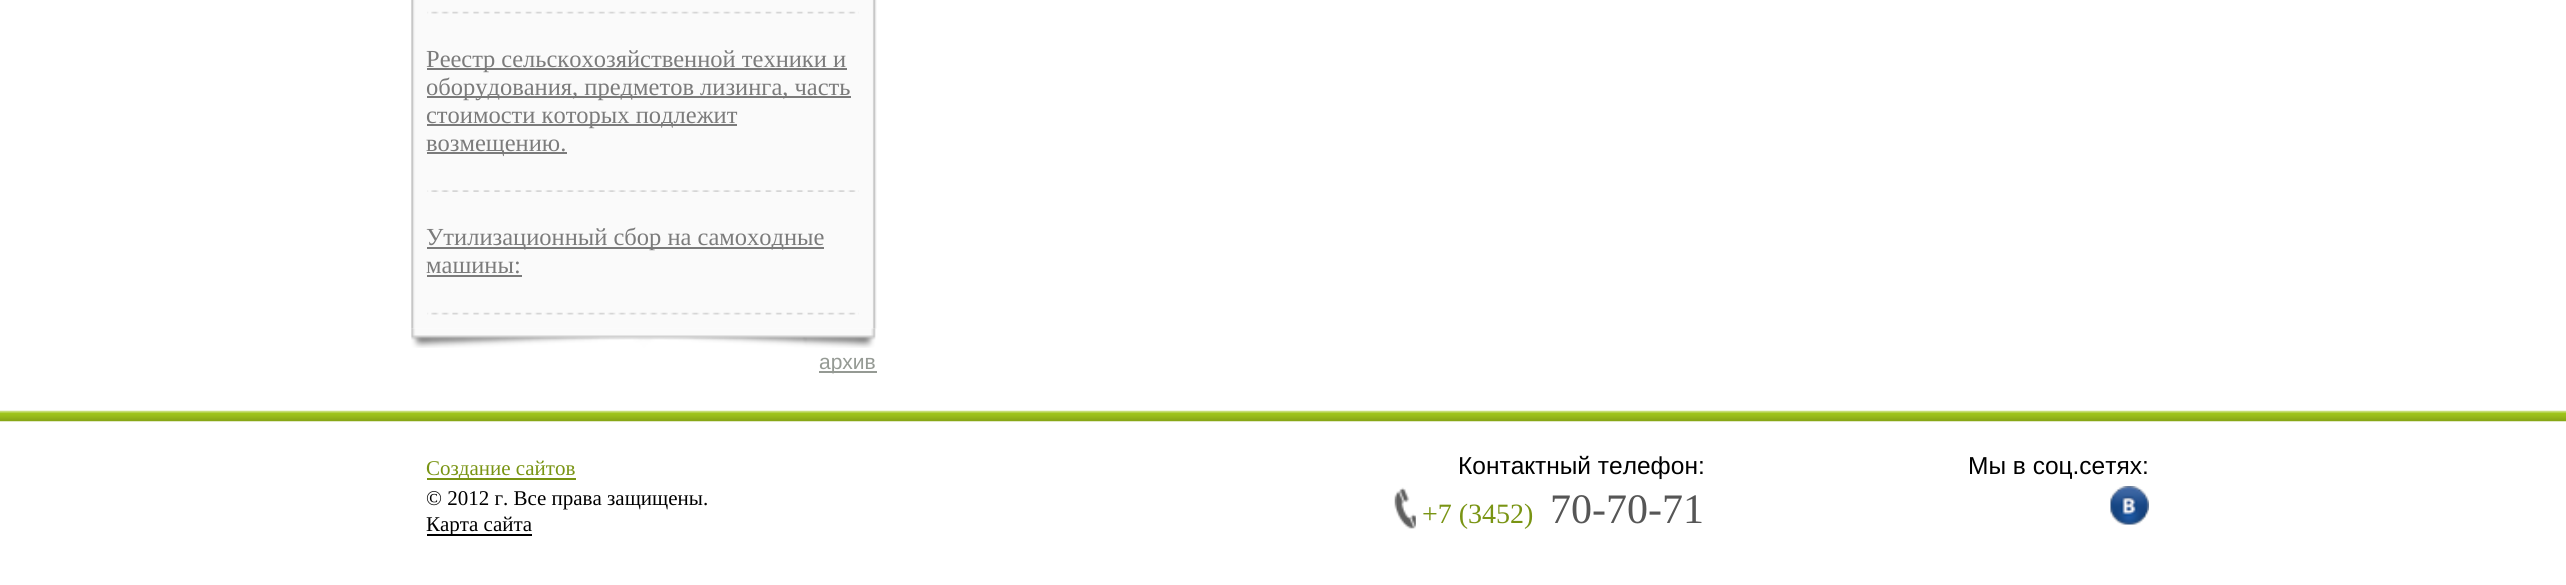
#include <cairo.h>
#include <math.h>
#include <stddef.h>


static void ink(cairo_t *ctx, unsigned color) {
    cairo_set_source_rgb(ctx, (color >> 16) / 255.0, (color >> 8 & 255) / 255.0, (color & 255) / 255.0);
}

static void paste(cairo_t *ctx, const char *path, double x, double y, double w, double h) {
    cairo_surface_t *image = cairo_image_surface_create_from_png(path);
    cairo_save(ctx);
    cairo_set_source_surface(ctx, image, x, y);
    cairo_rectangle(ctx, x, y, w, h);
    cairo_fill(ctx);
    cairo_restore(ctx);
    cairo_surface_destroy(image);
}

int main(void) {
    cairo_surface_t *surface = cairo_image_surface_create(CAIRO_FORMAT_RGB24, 2566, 585);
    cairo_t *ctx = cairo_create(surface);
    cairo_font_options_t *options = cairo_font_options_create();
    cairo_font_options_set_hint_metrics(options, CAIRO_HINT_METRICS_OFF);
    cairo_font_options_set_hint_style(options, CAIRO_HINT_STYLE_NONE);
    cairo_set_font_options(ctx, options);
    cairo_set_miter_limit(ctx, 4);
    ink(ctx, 0xFFFFFF);
    cairo_paint(ctx);
    paste(ctx, "media/1.png", 411, 0, 466, 329);
    paste(ctx, "media/2.png", 427, 11, 432, 3);
    ink(ctx, 0x7B7B7B);
    cairo_rectangle(ctx, 427, 68, 420, 2);
    cairo_fill(ctx);
    cairo_select_font_face(ctx, "Liberation Serif", CAIRO_FONT_SLANT_NORMAL, CAIRO_FONT_WEIGHT_NORMAL);
    cairo_set_font_size(ctx, 24.5);
    cairo_move_to(ctx, 426, 67);
    cairo_show_text(ctx, "Реестр сельскохозяйственной техники и");
    cairo_rectangle(ctx, 427, 96, 424, 2);
    cairo_fill(ctx);
    cairo_move_to(ctx, 426, 95);
    cairo_show_text(ctx, "оборудования, предметов лизинга, часть");
    cairo_rectangle(ctx, 427, 124, 310, 2);
    cairo_fill(ctx);
    cairo_move_to(ctx, 426, 123);
    cairo_show_text(ctx, "стоимости которых подлежит");
    cairo_rectangle(ctx, 427, 152, 140, 2);
    cairo_fill(ctx);
    cairo_move_to(ctx, 426, 151);
    cairo_show_text(ctx, "возмещению.");
    paste(ctx, "media/3.png", 427, 190, 432, 2);
    cairo_rectangle(ctx, 427, 247, 397, 2);
    cairo_fill(ctx);
    cairo_move_to(ctx, 426, 245);
    cairo_show_text(ctx, "Утилизационный сбор на самоходные");
    cairo_move_to(ctx, 426, 273);
    cairo_show_text(ctx, "машины:");
    cairo_rectangle(ctx, 427, 275, 95, 2);
    cairo_fill(ctx);
    paste(ctx, "media/2.png", 427, 312, 432, 3);
    paste(ctx, "media/4.png", 411, 328, 465, 20);
    ink(ctx, 0x959A94);
    cairo_rectangle(ctx, 819, 371, 58, 2);
    cairo_fill(ctx);
    cairo_select_font_face(ctx, "Liberation Sans", CAIRO_FONT_SLANT_NORMAL, CAIRO_FONT_WEIGHT_NORMAL);
    cairo_set_font_size(ctx, 21);
    cairo_move_to(ctx, 819, 369);
    cairo_show_text(ctx, "архив");
    paste(ctx, "media/5.png", 0, 410, 2566, 12);
    ink(ctx, 0x799413);
    cairo_rectangle(ctx, 427, 478, 149, 2);
    cairo_fill(ctx);
    cairo_select_font_face(ctx, "Liberation Serif", CAIRO_FONT_SLANT_NORMAL, CAIRO_FONT_WEIGHT_NORMAL);
    cairo_move_to(ctx, 426, 475);
    cairo_show_text(ctx, "Создание сайтов");
    cairo_select_font_face(ctx, "Liberation Sans", CAIRO_FONT_SLANT_NORMAL, CAIRO_FONT_WEIGHT_NORMAL);
    cairo_set_font_size(ctx, 24.5);
    ink(ctx, 0x000000);
    cairo_move_to(ctx, 1458, 474);
    cairo_show_text(ctx, "Контактный телефон:");
    cairo_move_to(ctx, 1968, 474);
    cairo_show_text(ctx, "Мы в соц.сетях:");
    cairo_select_font_face(ctx, "Liberation Serif", CAIRO_FONT_SLANT_NORMAL, CAIRO_FONT_WEIGHT_NORMAL);
    cairo_set_font_size(ctx, 21);
    cairo_move_to(ctx, 426, 505);
    cairo_show_text(ctx, "© 2012 г. Все права защищены.");
    cairo_rectangle(ctx, 427, 534, 105, 2);
    cairo_fill(ctx);
    cairo_move_to(ctx, 426, 531);
    cairo_show_text(ctx, "Карта сайта");
    paste(ctx, "media/6.png", 1394, 487, 22, 42);
    cairo_set_font_size(ctx, 28);
    ink(ctx, 0x799413);
    cairo_move_to(ctx, 1422, 523);
    cairo_show_text(ctx, "+7 (3452)");
    cairo_set_font_size(ctx, 42);
    ink(ctx, 0x565656);
    cairo_move_to(ctx, 1550, 523);
    cairo_show_text(ctx, "70-70-71");
    paste(ctx, "media/7.png", 2110, 486, 39, 39);
    cairo_surface_write_to_png(surface, "image.png");
    cairo_font_options_destroy(options);
    cairo_destroy(ctx);
    cairo_surface_destroy(surface);
    return 0;
}
